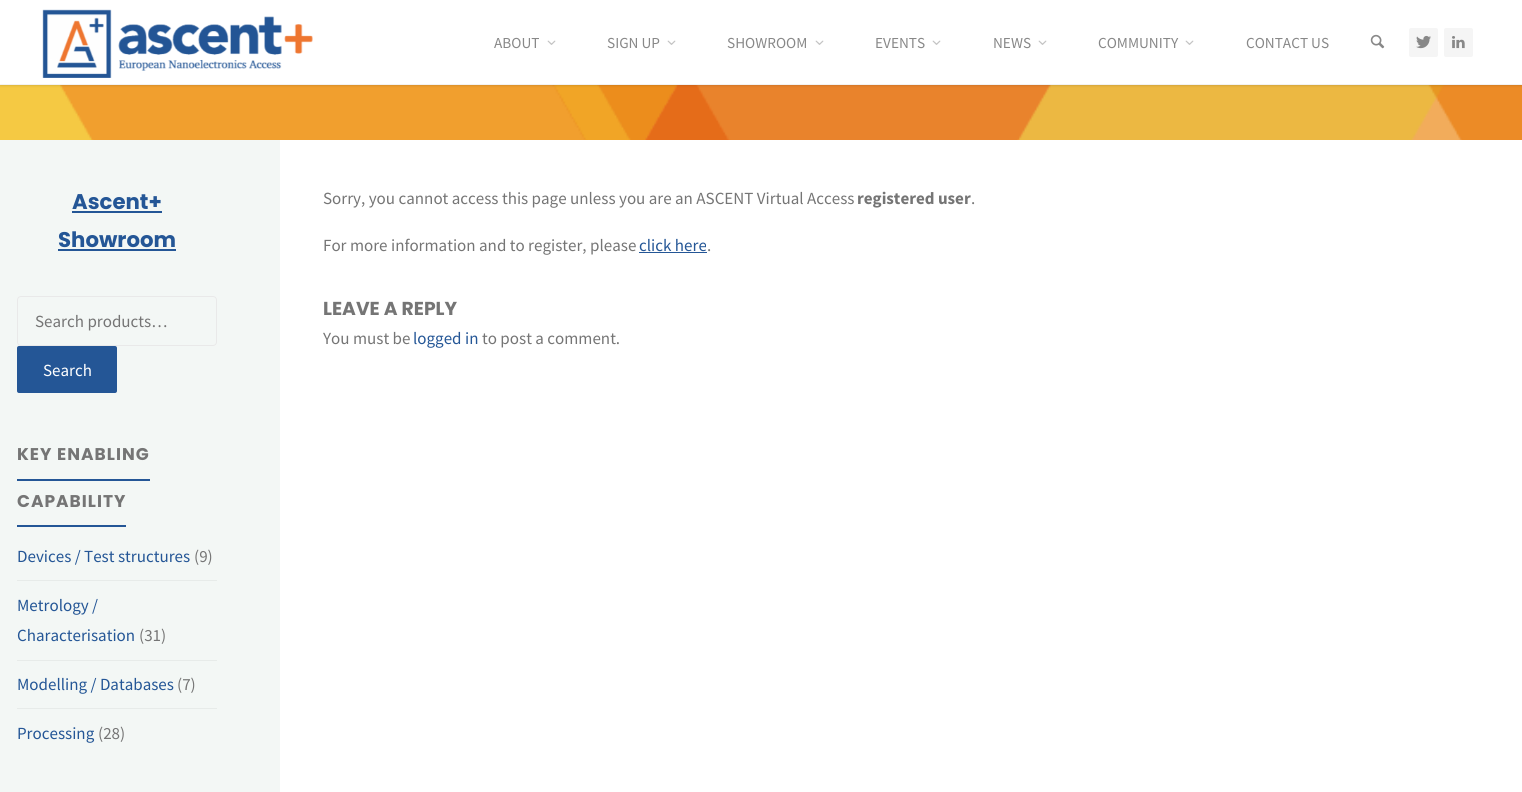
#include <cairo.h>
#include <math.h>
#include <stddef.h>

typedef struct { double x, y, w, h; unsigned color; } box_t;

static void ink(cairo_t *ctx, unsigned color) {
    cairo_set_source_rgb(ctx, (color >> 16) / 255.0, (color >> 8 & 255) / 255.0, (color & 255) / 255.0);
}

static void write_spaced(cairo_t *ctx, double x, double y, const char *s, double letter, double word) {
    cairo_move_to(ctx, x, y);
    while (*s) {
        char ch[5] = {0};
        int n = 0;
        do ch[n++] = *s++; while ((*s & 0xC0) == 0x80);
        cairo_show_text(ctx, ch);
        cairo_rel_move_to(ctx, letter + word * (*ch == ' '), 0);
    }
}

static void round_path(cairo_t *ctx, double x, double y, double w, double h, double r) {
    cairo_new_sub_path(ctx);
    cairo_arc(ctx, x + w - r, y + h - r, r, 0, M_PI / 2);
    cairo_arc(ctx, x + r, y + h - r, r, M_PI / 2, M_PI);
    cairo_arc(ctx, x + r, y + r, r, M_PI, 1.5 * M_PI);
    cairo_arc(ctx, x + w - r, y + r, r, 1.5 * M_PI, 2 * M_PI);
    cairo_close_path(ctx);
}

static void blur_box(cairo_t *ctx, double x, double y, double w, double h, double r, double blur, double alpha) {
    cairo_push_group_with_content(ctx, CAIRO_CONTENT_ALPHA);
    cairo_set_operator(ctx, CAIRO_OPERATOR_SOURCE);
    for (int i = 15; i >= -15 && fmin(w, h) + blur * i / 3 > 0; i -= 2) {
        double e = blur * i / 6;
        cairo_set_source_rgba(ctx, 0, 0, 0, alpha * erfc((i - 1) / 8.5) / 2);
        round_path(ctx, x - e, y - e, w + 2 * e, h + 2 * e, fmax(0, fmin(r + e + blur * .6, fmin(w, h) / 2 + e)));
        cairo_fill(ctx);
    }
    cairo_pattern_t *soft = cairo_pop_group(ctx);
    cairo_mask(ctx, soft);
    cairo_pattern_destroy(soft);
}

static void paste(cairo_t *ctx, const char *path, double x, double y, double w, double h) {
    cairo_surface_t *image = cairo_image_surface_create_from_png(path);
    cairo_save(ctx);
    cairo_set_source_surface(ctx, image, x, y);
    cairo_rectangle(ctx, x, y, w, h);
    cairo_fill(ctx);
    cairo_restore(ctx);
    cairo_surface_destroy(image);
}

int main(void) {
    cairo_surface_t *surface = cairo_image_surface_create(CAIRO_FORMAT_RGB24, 1522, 792);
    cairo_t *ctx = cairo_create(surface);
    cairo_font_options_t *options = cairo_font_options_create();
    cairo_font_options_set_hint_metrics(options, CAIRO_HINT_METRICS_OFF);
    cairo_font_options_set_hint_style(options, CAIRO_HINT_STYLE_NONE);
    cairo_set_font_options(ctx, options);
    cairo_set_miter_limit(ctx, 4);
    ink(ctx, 0xF3F7F5);
    cairo_paint(ctx);
    paste(ctx, "media/6.png", 0, 85, 1522, 55);
    ink(ctx, 0x000000);
    blur_box(ctx, 0, 0, 1522, 85, 0, 1.5, 0.2);
    ink(ctx, 0xFFFFFF);
    cairo_rectangle(ctx, 0, 0, 1522, 84);
    cairo_fill(ctx);
    ink(ctx, 0xF2F2F2);
    cairo_rectangle(ctx, 0, 84, 1522, 1);
    cairo_fill(ctx);
    paste(ctx, "media/1.png", 42, 9, 271, 69);
    cairo_select_font_face(ctx, "Source Sans Pro", CAIRO_FONT_SLANT_NORMAL, CAIRO_FONT_WEIGHT_NORMAL);
    cairo_set_font_size(ctx, 15.25);
    ink(ctx, 0x888888);
    cairo_move_to(ctx, 494, 48);
    cairo_show_text(ctx, "ABOUT");
    paste(ctx, "media/2.png", 547, 40, 9, 5);
    cairo_move_to(ctx, 607, 48);
    cairo_show_text(ctx, "SIGN UP");
    paste(ctx, "media/2.png", 667, 40, 9, 5);
    cairo_move_to(ctx, 727, 48);
    cairo_show_text(ctx, "SHOWROOM");
    paste(ctx, "media/2.png", 815, 40, 9, 5);
    cairo_move_to(ctx, 875, 48);
    cairo_show_text(ctx, "EVENTS");
    paste(ctx, "media/2.png", 932, 40, 9, 5);
    cairo_move_to(ctx, 993, 48);
    cairo_show_text(ctx, "NEWS");
    paste(ctx, "media/2.png", 1038, 40, 9, 5);
    cairo_move_to(ctx, 1098, 48);
    cairo_show_text(ctx, "COMMUNITY");
    paste(ctx, "media/2.png", 1185, 40, 9, 5);
    cairo_move_to(ctx, 1246, 48);
    cairo_show_text(ctx, "CONTACT US");
    paste(ctx, "media/3.png", 1370, 34, 15, 15);
    ink(ctx, 0xF5F5F5);
    round_path(ctx, 1409, 28, 29, 29, 2);
    cairo_fill(ctx);
    paste(ctx, "media/4.png", 1416, 35, 15, 14);
    round_path(ctx, 1444, 28, 29, 29, 2);
    cairo_fill(ctx);
    paste(ctx, "media/5.png", 1452, 36, 13, 13);
    cairo_select_font_face(ctx, "Poppins", CAIRO_FONT_SLANT_NORMAL, CAIRO_FONT_WEIGHT_BOLD);
    cairo_set_font_size(ctx, 21.25);
    ink(ctx, 0x245696);
    cairo_move_to(ctx, 72, 209);
    cairo_show_text(ctx, "Ascent+");
    cairo_rectangle(ctx, 72, 211, 90, 2);
    cairo_fill(ctx);
    cairo_move_to(ctx, 58, 247);
    cairo_show_text(ctx, "Showroom");
    cairo_rectangle(ctx, 58, 249, 118, 2);
    cairo_fill(ctx);
    round_path(ctx, 17.5, 296.5, 199, 49, 3.5);
    ink(ctx, 0xE9E9E9);
    cairo_set_line_width(ctx, 1);
    cairo_stroke(ctx);
    cairo_select_font_face(ctx, "Source Sans Pro", CAIRO_FONT_SLANT_NORMAL, CAIRO_FONT_WEIGHT_NORMAL);
    cairo_set_font_size(ctx, 17);
    ink(ctx, 0x757575);
    cairo_move_to(ctx, 35, 327);
    cairo_show_text(ctx, "Search products…");
    ink(ctx, 0x245696);
    round_path(ctx, 17, 346, 100, 47, 2);
    cairo_fill(ctx);
    ink(ctx, 0xFFFFFF);
    cairo_move_to(ctx, 43, 376);
    cairo_show_text(ctx, "Search");
    cairo_select_font_face(ctx, "Poppins", CAIRO_FONT_SLANT_NORMAL, CAIRO_FONT_WEIGHT_BOLD);
    ink(ctx, 0x757575);
    write_spaced(ctx, 17, 460, "KEY ENABLING", 1, 0);
    write_spaced(ctx, 17, 507, "CAPABILITY", 1, 0);
    {
        static const box_t items[] = {
            {17, 479, 133, 2, 0x245696},
            {17, 525, 109, 2, 0x245696},
            {17, 580, 200, 1, 0xE7EBE9},
        };
        for (size_t i = 0; i < sizeof items / sizeof *items; i++) {
            ink(ctx, items[i].color);
            cairo_rectangle(ctx, items[i].x, items[i].y, items[i].w, items[i].h);
            cairo_fill(ctx);
        }
    }
    cairo_select_font_face(ctx, "Source Sans Pro", CAIRO_FONT_SLANT_NORMAL, CAIRO_FONT_WEIGHT_NORMAL);
    ink(ctx, 0x245696);
    cairo_move_to(ctx, 17, 562);
    cairo_show_text(ctx, "Devices / Test structures");
    ink(ctx, 0x757575);
    cairo_move_to(ctx, 194, 562);
    cairo_show_text(ctx, "(9)");
    ink(ctx, 0xE7EBE9);
    cairo_rectangle(ctx, 17, 660, 200, 1);
    cairo_fill(ctx);
    ink(ctx, 0x245696);
    cairo_move_to(ctx, 17, 611);
    cairo_show_text(ctx, "Metrology /");
    cairo_move_to(ctx, 17, 641);
    cairo_show_text(ctx, "Characterisation");
    ink(ctx, 0x757575);
    cairo_move_to(ctx, 139, 641);
    cairo_show_text(ctx, "(31)");
    ink(ctx, 0xE7EBE9);
    cairo_rectangle(ctx, 17, 708, 200, 1);
    cairo_fill(ctx);
    ink(ctx, 0x245696);
    cairo_move_to(ctx, 17, 690);
    cairo_show_text(ctx, "Modelling / Databases");
    ink(ctx, 0x757575);
    cairo_move_to(ctx, 177, 690);
    cairo_show_text(ctx, "(7)");
    ink(ctx, 0x245696);
    cairo_move_to(ctx, 17, 739);
    cairo_show_text(ctx, "Processing");
    ink(ctx, 0x757575);
    cairo_move_to(ctx, 98, 739);
    cairo_show_text(ctx, "(28)");
    ink(ctx, 0xFFFFFF);
    cairo_rectangle(ctx, 280, 140, 1242, 652);
    cairo_fill(ctx);
    ink(ctx, 0x757575);
    cairo_move_to(ctx, 323, 204);
    cairo_show_text(ctx, "Sorry, you cannot access this page unless you are an ASCENT Virtual Access");
    cairo_select_font_face(ctx, "Source Sans Pro", CAIRO_FONT_SLANT_NORMAL, CAIRO_FONT_WEIGHT_BOLD);
    cairo_move_to(ctx, 857, 204);
    cairo_show_text(ctx, "registered user");
    cairo_select_font_face(ctx, "Source Sans Pro", CAIRO_FONT_SLANT_NORMAL, CAIRO_FONT_WEIGHT_NORMAL);
    cairo_move_to(ctx, 971, 204);
    cairo_show_text(ctx, ".");
    cairo_move_to(ctx, 323, 251);
    cairo_show_text(ctx, "For more information and to register, please");
    ink(ctx, 0x245696);
    cairo_move_to(ctx, 639, 251);
    cairo_show_text(ctx, "click here");
    cairo_rectangle(ctx, 639, 252, 68, 1);
    cairo_fill(ctx);
    ink(ctx, 0x757575);
    cairo_move_to(ctx, 707, 251);
    cairo_show_text(ctx, ".");
    cairo_select_font_face(ctx, "Poppins", CAIRO_FONT_SLANT_NORMAL, CAIRO_FONT_WEIGHT_BOLD);
    cairo_set_font_size(ctx, 18.75);
    cairo_move_to(ctx, 323, 315);
    cairo_show_text(ctx, "LEAVE A REPLY");
    cairo_select_font_face(ctx, "Source Sans Pro", CAIRO_FONT_SLANT_NORMAL, CAIRO_FONT_WEIGHT_NORMAL);
    cairo_set_font_size(ctx, 17);
    cairo_move_to(ctx, 323, 344);
    cairo_show_text(ctx, "You must be");
    ink(ctx, 0x245696);
    cairo_move_to(ctx, 413, 344);
    cairo_show_text(ctx, "logged in");
    ink(ctx, 0x757575);
    cairo_move_to(ctx, 482, 344);
    cairo_show_text(ctx, "to post a comment.");
    cairo_surface_write_to_png(surface, "image.png");
    cairo_font_options_destroy(options);
    cairo_destroy(ctx);
    cairo_surface_destroy(surface);
    return 0;
}
